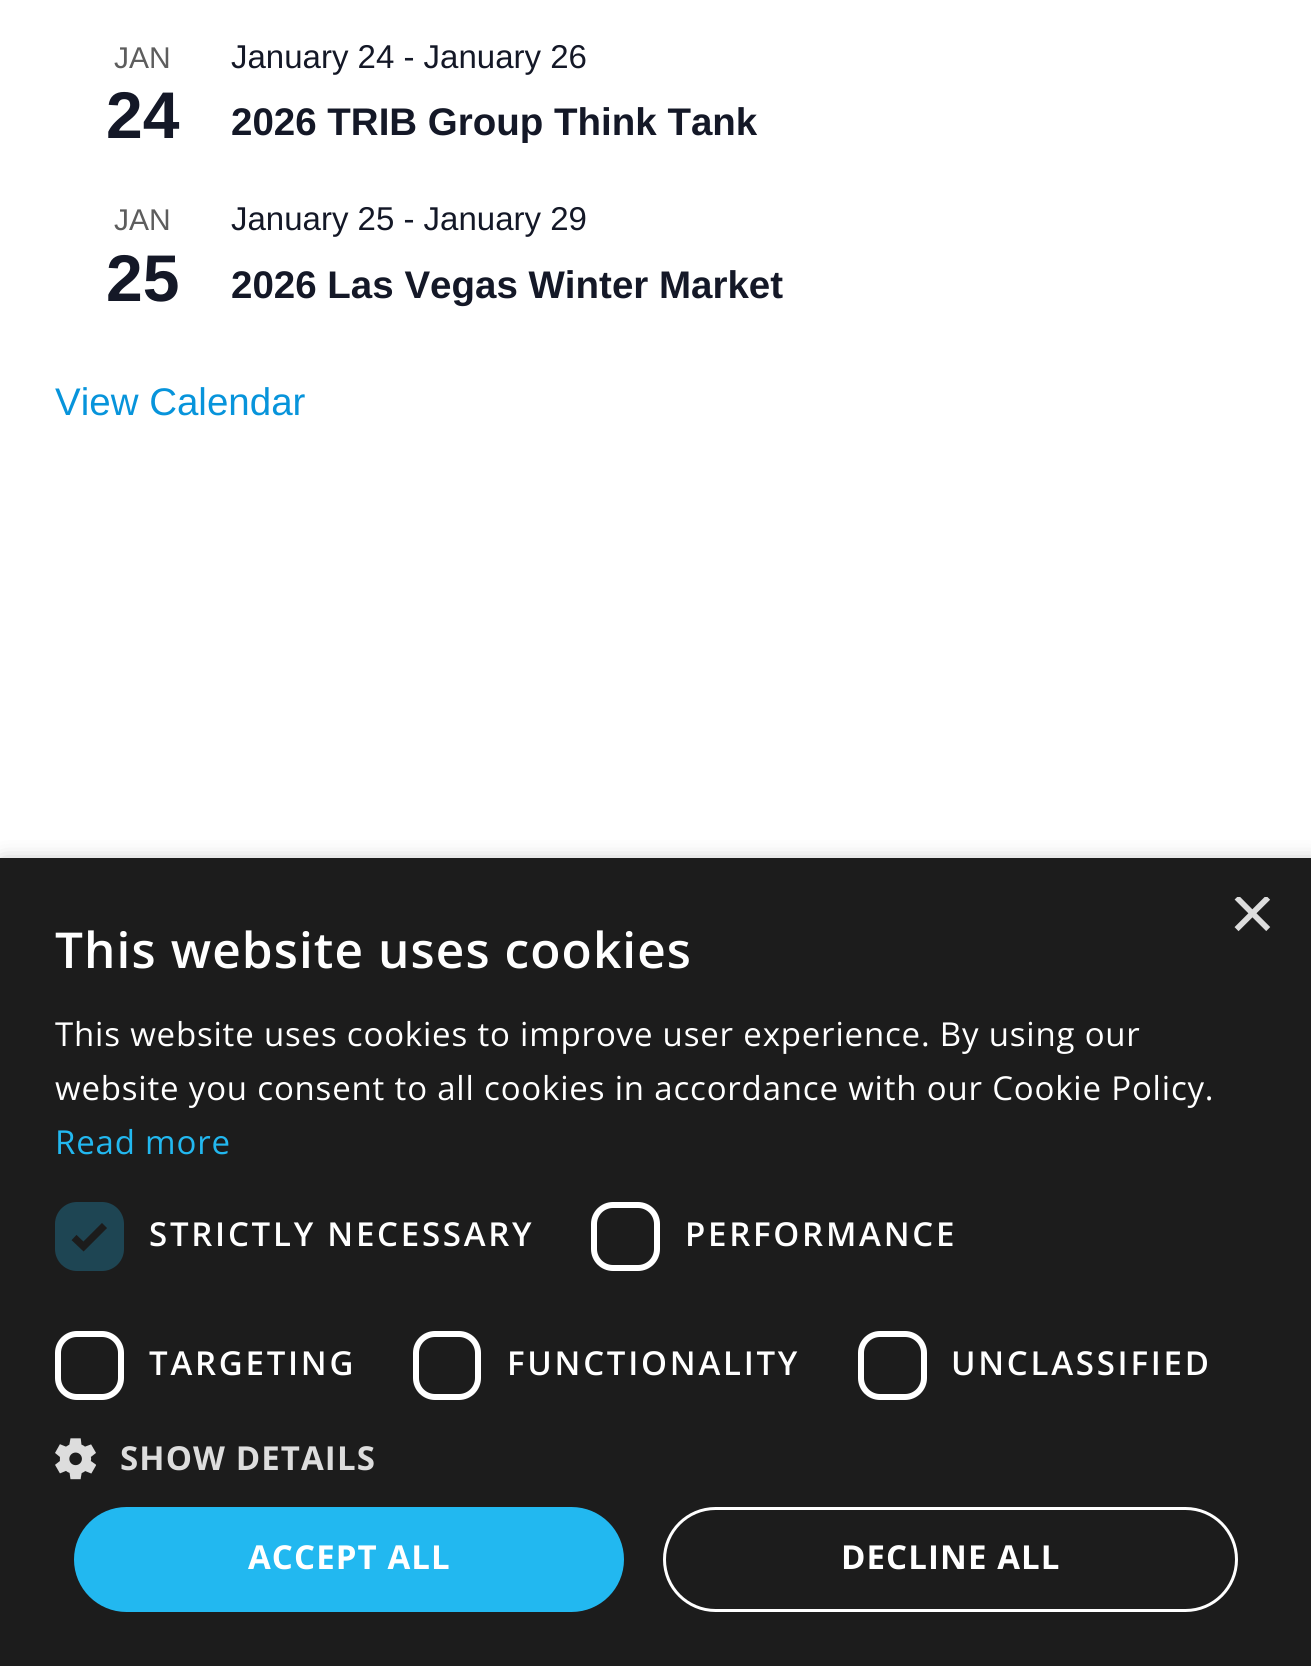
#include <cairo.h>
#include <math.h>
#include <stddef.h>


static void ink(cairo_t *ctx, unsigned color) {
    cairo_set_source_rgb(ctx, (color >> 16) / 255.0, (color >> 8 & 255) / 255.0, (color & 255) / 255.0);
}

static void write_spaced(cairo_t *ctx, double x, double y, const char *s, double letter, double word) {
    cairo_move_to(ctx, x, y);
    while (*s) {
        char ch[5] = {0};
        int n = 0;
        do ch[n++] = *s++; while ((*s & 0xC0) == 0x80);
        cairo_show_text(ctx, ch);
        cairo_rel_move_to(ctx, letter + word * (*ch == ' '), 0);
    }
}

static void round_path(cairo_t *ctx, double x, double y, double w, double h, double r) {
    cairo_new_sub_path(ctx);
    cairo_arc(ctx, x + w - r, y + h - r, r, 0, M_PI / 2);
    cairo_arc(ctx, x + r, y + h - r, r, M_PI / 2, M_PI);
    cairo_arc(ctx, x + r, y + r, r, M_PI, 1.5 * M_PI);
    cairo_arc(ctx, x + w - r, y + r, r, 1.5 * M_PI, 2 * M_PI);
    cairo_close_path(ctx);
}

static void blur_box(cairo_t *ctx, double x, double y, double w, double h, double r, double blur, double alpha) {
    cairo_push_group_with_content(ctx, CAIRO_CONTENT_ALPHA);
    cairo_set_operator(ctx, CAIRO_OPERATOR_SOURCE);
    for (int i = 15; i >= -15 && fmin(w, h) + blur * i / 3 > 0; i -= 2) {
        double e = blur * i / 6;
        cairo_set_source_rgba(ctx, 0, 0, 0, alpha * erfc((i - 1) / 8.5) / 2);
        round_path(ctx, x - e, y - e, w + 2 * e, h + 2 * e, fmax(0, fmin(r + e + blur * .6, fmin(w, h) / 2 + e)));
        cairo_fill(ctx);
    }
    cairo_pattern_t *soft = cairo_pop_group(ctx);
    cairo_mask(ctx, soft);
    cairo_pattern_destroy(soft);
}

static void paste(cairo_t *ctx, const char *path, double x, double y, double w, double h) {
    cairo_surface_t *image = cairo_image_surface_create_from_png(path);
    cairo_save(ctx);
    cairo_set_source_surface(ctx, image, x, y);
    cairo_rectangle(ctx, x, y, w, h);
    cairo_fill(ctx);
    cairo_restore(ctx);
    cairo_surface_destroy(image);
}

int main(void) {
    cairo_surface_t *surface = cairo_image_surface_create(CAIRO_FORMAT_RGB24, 1311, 1666);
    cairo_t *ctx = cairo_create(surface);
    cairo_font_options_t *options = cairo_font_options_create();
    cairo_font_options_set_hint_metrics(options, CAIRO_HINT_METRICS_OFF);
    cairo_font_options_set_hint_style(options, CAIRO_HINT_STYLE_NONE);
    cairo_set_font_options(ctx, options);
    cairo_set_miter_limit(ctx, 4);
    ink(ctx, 0xFFFFFF);
    cairo_paint(ctx);
    cairo_select_font_face(ctx, "Liberation Sans", CAIRO_FONT_SLANT_NORMAL, CAIRO_FONT_WEIGHT_NORMAL);
    cairo_set_font_size(ctx, 30);
    ink(ctx, 0x5D5D5D);
    cairo_move_to(ctx, 114, 68);
    cairo_show_text(ctx, "JAN");
    cairo_select_font_face(ctx, "Liberation Sans", CAIRO_FONT_SLANT_NORMAL, CAIRO_FONT_WEIGHT_BOLD);
    cairo_set_font_size(ctx, 66);
    ink(ctx, 0x141827);
    cairo_move_to(ctx, 106, 138);
    cairo_show_text(ctx, "24");
    cairo_select_font_face(ctx, "Liberation Sans", CAIRO_FONT_SLANT_NORMAL, CAIRO_FONT_WEIGHT_NORMAL);
    cairo_set_font_size(ctx, 33);
    cairo_move_to(ctx, 231, 68);
    cairo_show_text(ctx, "January 24 - January 26");
    cairo_select_font_face(ctx, "Liberation Sans", CAIRO_FONT_SLANT_NORMAL, CAIRO_FONT_WEIGHT_BOLD);
    cairo_set_font_size(ctx, 38.5);
    cairo_move_to(ctx, 231, 135);
    cairo_show_text(ctx, "2026 TRIB Group Think Tank");
    cairo_select_font_face(ctx, "Liberation Sans", CAIRO_FONT_SLANT_NORMAL, CAIRO_FONT_WEIGHT_NORMAL);
    cairo_set_font_size(ctx, 30);
    ink(ctx, 0x5D5D5D);
    cairo_move_to(ctx, 114, 230);
    cairo_show_text(ctx, "JAN");
    cairo_select_font_face(ctx, "Liberation Sans", CAIRO_FONT_SLANT_NORMAL, CAIRO_FONT_WEIGHT_BOLD);
    cairo_set_font_size(ctx, 66);
    ink(ctx, 0x141827);
    cairo_move_to(ctx, 106, 301);
    cairo_show_text(ctx, "25");
    cairo_select_font_face(ctx, "Liberation Sans", CAIRO_FONT_SLANT_NORMAL, CAIRO_FONT_WEIGHT_NORMAL);
    cairo_set_font_size(ctx, 33);
    cairo_move_to(ctx, 231, 230);
    cairo_show_text(ctx, "January 25 - January 29");
    cairo_select_font_face(ctx, "Liberation Sans", CAIRO_FONT_SLANT_NORMAL, CAIRO_FONT_WEIGHT_BOLD);
    cairo_set_font_size(ctx, 38.5);
    cairo_move_to(ctx, 231, 298);
    cairo_show_text(ctx, "2026 Las Vegas Winter Market");
    cairo_select_font_face(ctx, "Liberation Sans", CAIRO_FONT_SLANT_NORMAL, CAIRO_FONT_WEIGHT_NORMAL);
    ink(ctx, 0x0794DB);
    cairo_move_to(ctx, 55, 415);
    cairo_show_text(ctx, "View Calendar");
    ink(ctx, 0x000000);
    blur_box(ctx, 3, 864, 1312, 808, 0, 11, 0.35);
    ink(ctx, 0x1C1C1C);
    cairo_rectangle(ctx, 0, 858, 1311, 808);
    cairo_fill(ctx);
    cairo_save(ctx);
    cairo_rectangle(ctx, 1229, 897, 42, 41);
    cairo_clip(ctx);
    cairo_set_font_size(ctx, 80);
    ink(ctx, 0xDDDDDD);
    cairo_move_to(ctx, 1229, 940);
    cairo_show_text(ctx, "×");
    cairo_restore(ctx);
    cairo_select_font_face(ctx, "Open Sans SemiBold", CAIRO_FONT_SLANT_NORMAL, CAIRO_FONT_WEIGHT_NORMAL);
    cairo_set_font_size(ctx, 49.5);
    ink(ctx, 0xFFFFFF);
    write_spaced(ctx, 55, 968, "This website uses cookies", 1.1, 0);
    cairo_select_font_face(ctx, "Open Sans", CAIRO_FONT_SLANT_NORMAL, CAIRO_FONT_WEIGHT_NORMAL);
    cairo_set_font_size(ctx, 33);
    write_spaced(ctx, 55, 1046, "This website uses cookies to improve user experience. By using our", 0.82, 0);
    write_spaced(ctx, 55, 1100, "website you consent to all cookies in accordance with our Cookie Policy.", 0.82, 0);
    ink(ctx, 0x22B8F0);
    write_spaced(ctx, 55, 1154, "Read more", 0.82, 0);
    ink(ctx, 0x1E4553);
    round_path(ctx, 55, 1202, 69, 69, 22);
    cairo_fill(ctx);
    cairo_new_path(ctx);
    cairo_move_to(ctx, 74, 1237.5);
    cairo_line_to(ctx, 83.5, 1246.5);
    cairo_line_to(ctx, 104.5, 1225.5);
    ink(ctx, 0x1C1C1C);
    cairo_set_line_width(ctx, 7.2);
    cairo_stroke(ctx);
    cairo_select_font_face(ctx, "Open Sans SemiBold", CAIRO_FONT_SLANT_NORMAL, CAIRO_FONT_WEIGHT_NORMAL);
    ink(ctx, 0xFFFFFF);
    write_spaced(ctx, 149, 1246, "STRICTLY NECESSARY", 2.75, 0);
    round_path(ctx, 594, 1205, 63, 63, 19);
    cairo_set_line_width(ctx, 6);
    cairo_stroke(ctx);
    write_spaced(ctx, 685, 1246, "PERFORMANCE", 2.75, 0);
    round_path(ctx, 58, 1334, 63, 63, 19);
    cairo_stroke(ctx);
    write_spaced(ctx, 149, 1375, "TARGETING", 2.75, 0);
    round_path(ctx, 416, 1334, 62, 63, 19);
    cairo_stroke(ctx);
    write_spaced(ctx, 507, 1375, "FUNCTIONALITY", 2.75, 0);
    round_path(ctx, 861, 1334, 63, 63, 19);
    cairo_stroke(ctx);
    write_spaced(ctx, 951, 1375, "UNCLASSIFIED", 2.75, 0);
    paste(ctx, "media/1.png", 55, 1438, 41, 42);
    cairo_select_font_face(ctx, "Open Sans", CAIRO_FONT_SLANT_NORMAL, CAIRO_FONT_WEIGHT_BOLD);
    ink(ctx, 0xDDDDDD);
    write_spaced(ctx, 120, 1470, "SHOW DETAILS", 1.1, 0);
    ink(ctx, 0x22B8F0);
    round_path(ctx, 74, 1507, 550, 105, 52.5);
    cairo_fill(ctx);
    ink(ctx, 0xFFFFFF);
    write_spaced(ctx, 248, 1569, "ACCEPT ALL", 1.1, 0);
    round_path(ctx, 664.5, 1508.5, 572, 102, 51);
    cairo_set_line_width(ctx, 3);
    cairo_stroke(ctx);
    write_spaced(ctx, 841, 1569, "DECLINE ALL", 1.1, 0);
    cairo_surface_write_to_png(surface, "image.png");
    cairo_font_options_destroy(options);
    cairo_destroy(ctx);
    cairo_surface_destroy(surface);
    return 0;
}
